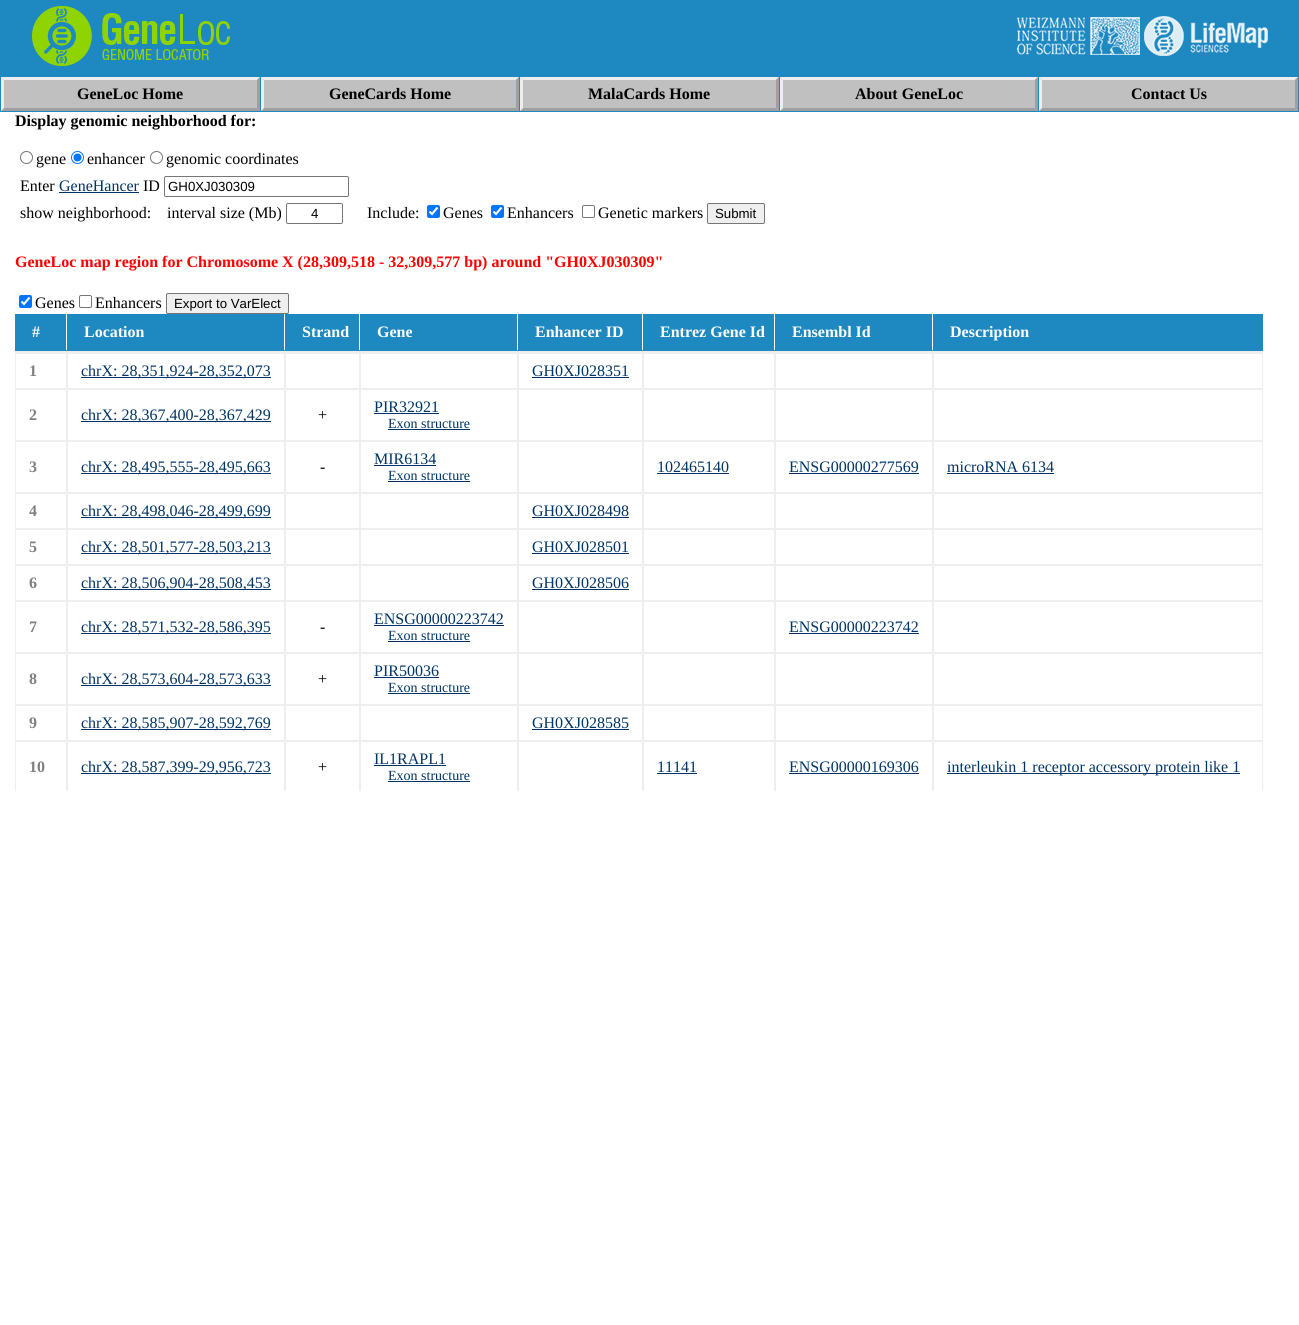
#include <cairo.h>
#include <math.h>
#include <stddef.h>


static void ink(cairo_t *ctx, unsigned color) {
    cairo_set_source_rgb(ctx, (color >> 16) / 255.0, (color >> 8 & 255) / 255.0, (color & 255) / 255.0);
}

static void round_path(cairo_t *ctx, double x, double y, double w, double h, double r) {
    cairo_new_sub_path(ctx);
    cairo_arc(ctx, x + w - r, y + h - r, r, 0, M_PI / 2);
    cairo_arc(ctx, x + r, y + h - r, r, M_PI / 2, M_PI);
    cairo_arc(ctx, x + r, y + r, r, M_PI, 1.5 * M_PI);
    cairo_arc(ctx, x + w - r, y + r, r, 1.5 * M_PI, 2 * M_PI);
    cairo_close_path(ctx);
}

static void paste(cairo_t *ctx, const char *path, double x, double y, double w, double h) {
    cairo_surface_t *image = cairo_image_surface_create_from_png(path);
    cairo_save(ctx);
    cairo_set_source_surface(ctx, image, x, y);
    cairo_rectangle(ctx, x, y, w, h);
    cairo_fill(ctx);
    cairo_restore(ctx);
    cairo_surface_destroy(image);
}

int main(void) {
    cairo_surface_t *surface = cairo_image_surface_create(CAIRO_FORMAT_RGB24, 1299, 1325);
    cairo_t *ctx = cairo_create(surface);
    cairo_font_options_t *options = cairo_font_options_create();
    cairo_font_options_set_hint_metrics(options, CAIRO_HINT_METRICS_OFF);
    cairo_font_options_set_hint_style(options, CAIRO_HINT_STYLE_NONE);
    cairo_set_font_options(ctx, options);
    cairo_set_miter_limit(ctx, 4);
    ink(ctx, 0xFFFFFF);
    cairo_paint(ctx);
    ink(ctx, 0x1E88C1);
    cairo_rectangle(ctx, 0, 0, 1299, 112);
    cairo_fill(ctx);
    paste(ctx, "media/1.png", 32, 6, 198, 60);
    paste(ctx, "media/2.png", 1017, 17, 123, 38);
    paste(ctx, "media/3.png", 1144, 16, 124, 40);
    ink(ctx, 0xC0C0C0);
    cairo_rectangle(ctx, 1, 77, 259, 34);
    cairo_fill(ctx);
    ink(ctx, 0xEEEEEE);
    cairo_new_path(ctx);
    cairo_move_to(ctx, 1, 77);
    cairo_line_to(ctx, 260, 77);
    cairo_line_to(ctx, 257, 80);
    cairo_line_to(ctx, 4, 80);
    cairo_close_path(ctx);
    cairo_fill(ctx);
    ink(ctx, 0x9F9F9F);
    cairo_new_path(ctx);
    cairo_move_to(ctx, 260, 77);
    cairo_line_to(ctx, 260, 111);
    cairo_line_to(ctx, 257, 108);
    cairo_line_to(ctx, 257, 80);
    cairo_close_path(ctx);
    cairo_fill(ctx);
    cairo_new_path(ctx);
    cairo_move_to(ctx, 260, 111);
    cairo_line_to(ctx, 1, 111);
    cairo_line_to(ctx, 4, 108);
    cairo_line_to(ctx, 257, 108);
    cairo_close_path(ctx);
    cairo_fill(ctx);
    ink(ctx, 0xEEEEEE);
    cairo_new_path(ctx);
    cairo_move_to(ctx, 1, 111);
    cairo_line_to(ctx, 1, 77);
    cairo_line_to(ctx, 4, 80);
    cairo_line_to(ctx, 4, 108);
    cairo_close_path(ctx);
    cairo_fill(ctx);
    cairo_select_font_face(ctx, "Liberation Serif", CAIRO_FONT_SLANT_NORMAL, CAIRO_FONT_WEIGHT_BOLD);
    cairo_set_font_size(ctx, 16);
    ink(ctx, 0x000000);
    cairo_move_to(ctx, 77, 99);
    cairo_show_text(ctx, "GeneLoc Home");
    ink(ctx, 0xC0C0C0);
    cairo_rectangle(ctx, 261, 77, 258, 34);
    cairo_fill(ctx);
    ink(ctx, 0xEEEEEE);
    cairo_new_path(ctx);
    cairo_move_to(ctx, 261, 77);
    cairo_line_to(ctx, 519, 77);
    cairo_line_to(ctx, 516, 80);
    cairo_line_to(ctx, 264, 80);
    cairo_close_path(ctx);
    cairo_fill(ctx);
    ink(ctx, 0x9F9F9F);
    cairo_new_path(ctx);
    cairo_move_to(ctx, 519, 77);
    cairo_line_to(ctx, 519, 111);
    cairo_line_to(ctx, 516, 108);
    cairo_line_to(ctx, 516, 80);
    cairo_close_path(ctx);
    cairo_fill(ctx);
    cairo_new_path(ctx);
    cairo_move_to(ctx, 519, 111);
    cairo_line_to(ctx, 261, 111);
    cairo_line_to(ctx, 264, 108);
    cairo_line_to(ctx, 516, 108);
    cairo_close_path(ctx);
    cairo_fill(ctx);
    ink(ctx, 0xEEEEEE);
    cairo_new_path(ctx);
    cairo_move_to(ctx, 261, 111);
    cairo_line_to(ctx, 261, 77);
    cairo_line_to(ctx, 264, 80);
    cairo_line_to(ctx, 264, 108);
    cairo_close_path(ctx);
    cairo_fill(ctx);
    ink(ctx, 0x000000);
    cairo_move_to(ctx, 329, 99);
    cairo_show_text(ctx, "GeneCards Home");
    ink(ctx, 0xC0C0C0);
    cairo_rectangle(ctx, 520, 77, 259, 34);
    cairo_fill(ctx);
    ink(ctx, 0xEEEEEE);
    cairo_new_path(ctx);
    cairo_move_to(ctx, 520, 77);
    cairo_line_to(ctx, 779, 77);
    cairo_line_to(ctx, 776, 80);
    cairo_line_to(ctx, 523, 80);
    cairo_close_path(ctx);
    cairo_fill(ctx);
    ink(ctx, 0x9F9F9F);
    cairo_new_path(ctx);
    cairo_move_to(ctx, 779, 77);
    cairo_line_to(ctx, 779, 111);
    cairo_line_to(ctx, 776, 108);
    cairo_line_to(ctx, 776, 80);
    cairo_close_path(ctx);
    cairo_fill(ctx);
    cairo_new_path(ctx);
    cairo_move_to(ctx, 779, 111);
    cairo_line_to(ctx, 520, 111);
    cairo_line_to(ctx, 523, 108);
    cairo_line_to(ctx, 776, 108);
    cairo_close_path(ctx);
    cairo_fill(ctx);
    ink(ctx, 0xEEEEEE);
    cairo_new_path(ctx);
    cairo_move_to(ctx, 520, 111);
    cairo_line_to(ctx, 520, 77);
    cairo_line_to(ctx, 523, 80);
    cairo_line_to(ctx, 523, 108);
    cairo_close_path(ctx);
    cairo_fill(ctx);
    ink(ctx, 0x000000);
    cairo_move_to(ctx, 588, 99);
    cairo_show_text(ctx, "MalaCards Home");
    ink(ctx, 0xC0C0C0);
    cairo_rectangle(ctx, 780, 77, 258, 34);
    cairo_fill(ctx);
    ink(ctx, 0xEEEEEE);
    cairo_new_path(ctx);
    cairo_move_to(ctx, 780, 77);
    cairo_line_to(ctx, 1038, 77);
    cairo_line_to(ctx, 1035, 80);
    cairo_line_to(ctx, 783, 80);
    cairo_close_path(ctx);
    cairo_fill(ctx);
    ink(ctx, 0x9F9F9F);
    cairo_new_path(ctx);
    cairo_move_to(ctx, 1038, 77);
    cairo_line_to(ctx, 1038, 111);
    cairo_line_to(ctx, 1035, 108);
    cairo_line_to(ctx, 1035, 80);
    cairo_close_path(ctx);
    cairo_fill(ctx);
    cairo_new_path(ctx);
    cairo_move_to(ctx, 1038, 111);
    cairo_line_to(ctx, 780, 111);
    cairo_line_to(ctx, 783, 108);
    cairo_line_to(ctx, 1035, 108);
    cairo_close_path(ctx);
    cairo_fill(ctx);
    ink(ctx, 0xEEEEEE);
    cairo_new_path(ctx);
    cairo_move_to(ctx, 780, 111);
    cairo_line_to(ctx, 780, 77);
    cairo_line_to(ctx, 783, 80);
    cairo_line_to(ctx, 783, 108);
    cairo_close_path(ctx);
    cairo_fill(ctx);
    ink(ctx, 0x000000);
    cairo_move_to(ctx, 855, 99);
    cairo_show_text(ctx, "About GeneLoc");
    ink(ctx, 0xC0C0C0);
    cairo_rectangle(ctx, 1039, 77, 259, 34);
    cairo_fill(ctx);
    ink(ctx, 0xEEEEEE);
    cairo_new_path(ctx);
    cairo_move_to(ctx, 1039, 77);
    cairo_line_to(ctx, 1298, 77);
    cairo_line_to(ctx, 1295, 80);
    cairo_line_to(ctx, 1042, 80);
    cairo_close_path(ctx);
    cairo_fill(ctx);
    ink(ctx, 0x9F9F9F);
    cairo_new_path(ctx);
    cairo_move_to(ctx, 1298, 77);
    cairo_line_to(ctx, 1298, 111);
    cairo_line_to(ctx, 1295, 108);
    cairo_line_to(ctx, 1295, 80);
    cairo_close_path(ctx);
    cairo_fill(ctx);
    cairo_new_path(ctx);
    cairo_move_to(ctx, 1298, 111);
    cairo_line_to(ctx, 1039, 111);
    cairo_line_to(ctx, 1042, 108);
    cairo_line_to(ctx, 1295, 108);
    cairo_close_path(ctx);
    cairo_fill(ctx);
    ink(ctx, 0xEEEEEE);
    cairo_new_path(ctx);
    cairo_move_to(ctx, 1039, 111);
    cairo_line_to(ctx, 1039, 77);
    cairo_line_to(ctx, 1042, 80);
    cairo_line_to(ctx, 1042, 108);
    cairo_close_path(ctx);
    cairo_fill(ctx);
    ink(ctx, 0x000000);
    cairo_move_to(ctx, 1131, 99);
    cairo_show_text(ctx, "Contact Us");
    cairo_move_to(ctx, 15, 126);
    cairo_show_text(ctx, "Display genomic neighborhood for:");
    cairo_new_path(ctx);
    cairo_arc(ctx, 26.5, 157.5, 6, 0, 2 * M_PI);
    ink(ctx, 0x767676);
    cairo_set_line_width(ctx, 1);
    cairo_stroke(ctx);
    cairo_select_font_face(ctx, "Liberation Serif", CAIRO_FONT_SLANT_NORMAL, CAIRO_FONT_WEIGHT_NORMAL);
    ink(ctx, 0x000000);
    cairo_move_to(ctx, 36, 164);
    cairo_show_text(ctx, "gene");
    cairo_new_path(ctx);
    cairo_arc(ctx, 77.5, 157.5, 6, 0, 2 * M_PI);
    ink(ctx, 0x0075FF);
    cairo_stroke(ctx);
    cairo_arc(ctx, 77.5, 157.5, 4, 0, 2 * M_PI);
    cairo_fill(ctx);
    ink(ctx, 0x000000);
    cairo_move_to(ctx, 87, 164);
    cairo_show_text(ctx, "enhancer");
    cairo_new_path(ctx);
    cairo_arc(ctx, 156.5, 157.5, 6, 0, 2 * M_PI);
    ink(ctx, 0x767676);
    cairo_stroke(ctx);
    ink(ctx, 0x000000);
    cairo_move_to(ctx, 166, 164);
    cairo_show_text(ctx, "genomic coordinates");
    cairo_move_to(ctx, 20, 191);
    cairo_show_text(ctx, "Enter");
    ink(ctx, 0x003366);
    cairo_move_to(ctx, 59, 191);
    cairo_show_text(ctx, "GeneHancer");
    cairo_rectangle(ctx, 59, 192, 80, 1);
    cairo_fill(ctx);
    ink(ctx, 0x000000);
    cairo_move_to(ctx, 143, 191);
    cairo_show_text(ctx, "ID");
    round_path(ctx, 164.5, 176.5, 184, 20, 1.5);
    ink(ctx, 0x767676);
    cairo_stroke(ctx);
    cairo_select_font_face(ctx, "Liberation Sans", CAIRO_FONT_SLANT_NORMAL, CAIRO_FONT_WEIGHT_NORMAL);
    cairo_set_font_size(ctx, 13.25);
    ink(ctx, 0x000000);
    cairo_move_to(ctx, 168, 191);
    cairo_show_text(ctx, "GH0XJ030309");
    cairo_select_font_face(ctx, "Liberation Serif", CAIRO_FONT_SLANT_NORMAL, CAIRO_FONT_WEIGHT_NORMAL);
    cairo_set_font_size(ctx, 16);
    cairo_move_to(ctx, 20, 218);
    cairo_show_text(ctx, "show neighborhood:    interval size (Mb)");
    round_path(ctx, 286.5, 203.5, 56, 20, 1.5);
    ink(ctx, 0x767676);
    cairo_stroke(ctx);
    cairo_select_font_face(ctx, "Liberation Sans", CAIRO_FONT_SLANT_NORMAL, CAIRO_FONT_WEIGHT_NORMAL);
    cairo_set_font_size(ctx, 13.25);
    ink(ctx, 0x000000);
    cairo_move_to(ctx, 311, 218);
    cairo_show_text(ctx, "4");
    cairo_select_font_face(ctx, "Liberation Serif", CAIRO_FONT_SLANT_NORMAL, CAIRO_FONT_WEIGHT_NORMAL);
    cairo_set_font_size(ctx, 16);
    cairo_move_to(ctx, 367, 218);
    cairo_show_text(ctx, "Include:");
    ink(ctx, 0x0075FF);
    round_path(ctx, 427, 205, 13, 13, 2);
    cairo_fill(ctx);
    cairo_new_path(ctx);
    cairo_move_to(ctx, 429.5, 211.5);
    cairo_line_to(ctx, 432, 214);
    cairo_line_to(ctx, 437.5, 207.5);
    ink(ctx, 0xFFFFFF);
    cairo_set_line_width(ctx, 2.1);
    cairo_stroke(ctx);
    ink(ctx, 0x000000);
    cairo_move_to(ctx, 443, 218);
    cairo_show_text(ctx, "Genes");
    ink(ctx, 0x0075FF);
    round_path(ctx, 491, 205, 13, 13, 2);
    cairo_fill(ctx);
    cairo_new_path(ctx);
    cairo_move_to(ctx, 493.5, 211.5);
    cairo_line_to(ctx, 496, 214);
    cairo_line_to(ctx, 501.5, 207.5);
    ink(ctx, 0xFFFFFF);
    cairo_stroke(ctx);
    ink(ctx, 0x000000);
    cairo_move_to(ctx, 507, 218);
    cairo_show_text(ctx, "Enhancers");
    round_path(ctx, 582.5, 205.5, 12, 12, 1.5);
    ink(ctx, 0x767676);
    cairo_set_line_width(ctx, 1);
    cairo_stroke(ctx);
    ink(ctx, 0x000000);
    cairo_move_to(ctx, 598, 218);
    cairo_show_text(ctx, "Genetic markers");
    ink(ctx, 0xEFEFEF);
    round_path(ctx, 707.5, 203.5, 57, 20, 1.5);
    cairo_fill_preserve(ctx);
    ink(ctx, 0x767676);
    cairo_stroke(ctx);
    cairo_select_font_face(ctx, "Liberation Sans", CAIRO_FONT_SLANT_NORMAL, CAIRO_FONT_WEIGHT_NORMAL);
    cairo_set_font_size(ctx, 13.25);
    ink(ctx, 0x000000);
    cairo_move_to(ctx, 715, 218);
    cairo_show_text(ctx, "Submit");
    cairo_select_font_face(ctx, "Liberation Serif", CAIRO_FONT_SLANT_NORMAL, CAIRO_FONT_WEIGHT_BOLD);
    cairo_set_font_size(ctx, 16);
    ink(ctx, 0xFF0000);
    cairo_move_to(ctx, 15, 267);
    cairo_show_text(ctx, "GeneLoc map region for Chromosome X (28,309,518 - 32,309,577 bp) around \"GH0XJ030309\"");
    ink(ctx, 0x0075FF);
    round_path(ctx, 19, 295, 13, 13, 2);
    cairo_fill(ctx);
    cairo_new_path(ctx);
    cairo_move_to(ctx, 21.5, 301.5);
    cairo_line_to(ctx, 24, 304);
    cairo_line_to(ctx, 29.5, 297.5);
    ink(ctx, 0xFFFFFF);
    cairo_set_line_width(ctx, 2.1);
    cairo_stroke(ctx);
    cairo_select_font_face(ctx, "Liberation Serif", CAIRO_FONT_SLANT_NORMAL, CAIRO_FONT_WEIGHT_NORMAL);
    ink(ctx, 0x000000);
    cairo_move_to(ctx, 35, 308);
    cairo_show_text(ctx, "Genes");
    round_path(ctx, 79.5, 295.5, 12, 12, 1.5);
    ink(ctx, 0x767676);
    cairo_set_line_width(ctx, 1);
    cairo_stroke(ctx);
    ink(ctx, 0x000000);
    cairo_move_to(ctx, 95, 308);
    cairo_show_text(ctx, "Enhancers");
    ink(ctx, 0xEFEFEF);
    round_path(ctx, 166.5, 293.5, 122, 20, 1.5);
    cairo_fill_preserve(ctx);
    ink(ctx, 0x767676);
    cairo_stroke(ctx);
    cairo_select_font_face(ctx, "Liberation Sans", CAIRO_FONT_SLANT_NORMAL, CAIRO_FONT_WEIGHT_NORMAL);
    cairo_set_font_size(ctx, 13.25);
    ink(ctx, 0x000000);
    cairo_move_to(ctx, 174, 308);
    cairo_show_text(ctx, "Export to VarElect");
    ink(ctx, 0x1E88C1);
    cairo_rectangle(ctx, 15, 314, 1248, 37);
    cairo_fill(ctx);
    ink(ctx, 0xEEEEEE);
    cairo_rectangle(ctx, 15, 351, 1248, 2);
    cairo_fill(ctx);
    cairo_select_font_face(ctx, "Liberation Serif", CAIRO_FONT_SLANT_NORMAL, CAIRO_FONT_WEIGHT_BOLD);
    cairo_set_font_size(ctx, 16);
    ink(ctx, 0xFFFFFF);
    cairo_move_to(ctx, 32, 337);
    cairo_show_text(ctx, "#");
    cairo_rectangle(ctx, 66, 314, 1, 36);
    cairo_fill(ctx);
    cairo_move_to(ctx, 84, 337);
    cairo_show_text(ctx, "Location");
    cairo_rectangle(ctx, 284, 314, 1, 36);
    cairo_fill(ctx);
    cairo_move_to(ctx, 302, 337);
    cairo_show_text(ctx, "Strand");
    cairo_rectangle(ctx, 359, 314, 1, 36);
    cairo_fill(ctx);
    cairo_move_to(ctx, 377, 337);
    cairo_show_text(ctx, "Gene");
    cairo_rectangle(ctx, 517, 314, 1, 36);
    cairo_fill(ctx);
    cairo_move_to(ctx, 535, 337);
    cairo_show_text(ctx, "Enhancer ID");
    cairo_rectangle(ctx, 642, 314, 1, 36);
    cairo_fill(ctx);
    cairo_move_to(ctx, 660, 337);
    cairo_show_text(ctx, "Entrez Gene Id");
    cairo_rectangle(ctx, 774, 314, 1, 36);
    cairo_fill(ctx);
    cairo_move_to(ctx, 792, 337);
    cairo_show_text(ctx, "Ensembl Id");
    cairo_rectangle(ctx, 932, 314, 1, 36);
    cairo_fill(ctx);
    cairo_move_to(ctx, 950, 337);
    cairo_show_text(ctx, "Description");
    cairo_rectangle(ctx, 15.5, 353.5, 51, 35);
    ink(ctx, 0xEEEEEE);
    cairo_stroke(ctx);
    ink(ctx, 0x808080);
    cairo_move_to(ctx, 29, 376);
    cairo_show_text(ctx, "1");
    cairo_rectangle(ctx, 67.5, 353.5, 217, 35);
    ink(ctx, 0xEEEEEE);
    cairo_stroke(ctx);
    ink(ctx, 0x003366);
    cairo_rectangle(ctx, 81, 377, 190, 1);
    cairo_fill(ctx);
    cairo_select_font_face(ctx, "Liberation Serif", CAIRO_FONT_SLANT_NORMAL, CAIRO_FONT_WEIGHT_NORMAL);
    cairo_move_to(ctx, 81, 376);
    cairo_show_text(ctx, "chrX: 28,351,924-28,352,073");
    cairo_rectangle(ctx, 285.5, 353.5, 74, 35);
    ink(ctx, 0xEEEEEE);
    cairo_stroke(ctx);
    cairo_rectangle(ctx, 360.5, 353.5, 157, 35);
    cairo_stroke(ctx);
    cairo_rectangle(ctx, 518.5, 353.5, 124, 35);
    cairo_stroke(ctx);
    ink(ctx, 0x003366);
    cairo_move_to(ctx, 532, 376);
    cairo_show_text(ctx, "GH0XJ028351");
    cairo_rectangle(ctx, 532, 377, 97, 1);
    cairo_fill(ctx);
    cairo_rectangle(ctx, 643.5, 353.5, 131, 35);
    ink(ctx, 0xEEEEEE);
    cairo_stroke(ctx);
    cairo_rectangle(ctx, 775.5, 353.5, 157, 35);
    cairo_stroke(ctx);
    cairo_rectangle(ctx, 933.5, 353.5, 329, 35);
    cairo_stroke(ctx);
    cairo_rectangle(ctx, 15.5, 389.5, 51, 51);
    cairo_stroke(ctx);
    cairo_select_font_face(ctx, "Liberation Serif", CAIRO_FONT_SLANT_NORMAL, CAIRO_FONT_WEIGHT_BOLD);
    ink(ctx, 0x808080);
    cairo_move_to(ctx, 29, 420);
    cairo_show_text(ctx, "2");
    cairo_rectangle(ctx, 67.5, 389.5, 217, 51);
    ink(ctx, 0xEEEEEE);
    cairo_stroke(ctx);
    ink(ctx, 0x003366);
    cairo_rectangle(ctx, 81, 421, 190, 1);
    cairo_fill(ctx);
    cairo_select_font_face(ctx, "Liberation Serif", CAIRO_FONT_SLANT_NORMAL, CAIRO_FONT_WEIGHT_NORMAL);
    cairo_move_to(ctx, 81, 420);
    cairo_show_text(ctx, "chrX: 28,367,400-28,367,429");
    cairo_rectangle(ctx, 285.5, 389.5, 74, 51);
    ink(ctx, 0xEEEEEE);
    cairo_stroke(ctx);
    ink(ctx, 0x000000);
    cairo_move_to(ctx, 318, 420);
    cairo_show_text(ctx, "+");
    cairo_rectangle(ctx, 360.5, 389.5, 157, 51);
    ink(ctx, 0xEEEEEE);
    cairo_stroke(ctx);
    ink(ctx, 0x003366);
    cairo_move_to(ctx, 374, 412);
    cairo_show_text(ctx, "PIR32921");
    cairo_rectangle(ctx, 374, 413, 65, 1);
    cairo_fill(ctx);
    cairo_set_font_size(ctx, 14);
    cairo_move_to(ctx, 388, 428);
    cairo_show_text(ctx, "Exon structure");
    cairo_rectangle(ctx, 388, 429, 82, 1);
    cairo_fill(ctx);
    cairo_rectangle(ctx, 518.5, 389.5, 124, 51);
    ink(ctx, 0xEEEEEE);
    cairo_stroke(ctx);
    cairo_rectangle(ctx, 643.5, 389.5, 131, 51);
    cairo_stroke(ctx);
    cairo_rectangle(ctx, 775.5, 389.5, 157, 51);
    cairo_stroke(ctx);
    cairo_rectangle(ctx, 933.5, 389.5, 329, 51);
    cairo_stroke(ctx);
    cairo_rectangle(ctx, 15.5, 441.5, 51, 51);
    cairo_stroke(ctx);
    cairo_select_font_face(ctx, "Liberation Serif", CAIRO_FONT_SLANT_NORMAL, CAIRO_FONT_WEIGHT_BOLD);
    cairo_set_font_size(ctx, 16);
    ink(ctx, 0x808080);
    cairo_move_to(ctx, 29, 472);
    cairo_show_text(ctx, "3");
    cairo_rectangle(ctx, 67.5, 441.5, 217, 51);
    ink(ctx, 0xEEEEEE);
    cairo_stroke(ctx);
    ink(ctx, 0x003366);
    cairo_rectangle(ctx, 81, 473, 190, 1);
    cairo_fill(ctx);
    cairo_select_font_face(ctx, "Liberation Serif", CAIRO_FONT_SLANT_NORMAL, CAIRO_FONT_WEIGHT_NORMAL);
    cairo_move_to(ctx, 81, 472);
    cairo_show_text(ctx, "chrX: 28,495,555-28,495,663");
    cairo_rectangle(ctx, 285.5, 441.5, 74, 51);
    ink(ctx, 0xEEEEEE);
    cairo_stroke(ctx);
    ink(ctx, 0x000000);
    cairo_move_to(ctx, 320, 472);
    cairo_show_text(ctx, "-");
    cairo_rectangle(ctx, 360.5, 441.5, 157, 51);
    ink(ctx, 0xEEEEEE);
    cairo_stroke(ctx);
    ink(ctx, 0x003366);
    cairo_move_to(ctx, 374, 464);
    cairo_show_text(ctx, "MIR6134");
    cairo_rectangle(ctx, 374, 465, 62, 1);
    cairo_fill(ctx);
    cairo_set_font_size(ctx, 14);
    cairo_move_to(ctx, 388, 480);
    cairo_show_text(ctx, "Exon structure");
    cairo_rectangle(ctx, 388, 481, 82, 1);
    cairo_fill(ctx);
    cairo_rectangle(ctx, 518.5, 441.5, 124, 51);
    ink(ctx, 0xEEEEEE);
    cairo_stroke(ctx);
    cairo_rectangle(ctx, 643.5, 441.5, 131, 51);
    cairo_stroke(ctx);
    cairo_set_font_size(ctx, 16);
    ink(ctx, 0x003366);
    cairo_move_to(ctx, 657, 472);
    cairo_show_text(ctx, "102465140");
    cairo_rectangle(ctx, 657, 473, 72, 1);
    cairo_fill(ctx);
    cairo_rectangle(ctx, 775.5, 441.5, 157, 51);
    ink(ctx, 0xEEEEEE);
    cairo_stroke(ctx);
    ink(ctx, 0x003366);
    cairo_move_to(ctx, 789, 472);
    cairo_show_text(ctx, "ENSG00000277569");
    cairo_rectangle(ctx, 789, 473, 130, 1);
    cairo_fill(ctx);
    cairo_rectangle(ctx, 933.5, 441.5, 329, 51);
    ink(ctx, 0xEEEEEE);
    cairo_stroke(ctx);
    ink(ctx, 0x003366);
    cairo_move_to(ctx, 947, 472);
    cairo_show_text(ctx, "microRNA 6134");
    cairo_rectangle(ctx, 947, 473, 107, 1);
    cairo_fill(ctx);
    cairo_rectangle(ctx, 15.5, 493.5, 51, 35);
    ink(ctx, 0xEEEEEE);
    cairo_stroke(ctx);
    cairo_select_font_face(ctx, "Liberation Serif", CAIRO_FONT_SLANT_NORMAL, CAIRO_FONT_WEIGHT_BOLD);
    ink(ctx, 0x808080);
    cairo_move_to(ctx, 29, 516);
    cairo_show_text(ctx, "4");
    cairo_rectangle(ctx, 67.5, 493.5, 217, 35);
    ink(ctx, 0xEEEEEE);
    cairo_stroke(ctx);
    ink(ctx, 0x003366);
    cairo_rectangle(ctx, 81, 517, 190, 1);
    cairo_fill(ctx);
    cairo_select_font_face(ctx, "Liberation Serif", CAIRO_FONT_SLANT_NORMAL, CAIRO_FONT_WEIGHT_NORMAL);
    cairo_move_to(ctx, 81, 516);
    cairo_show_text(ctx, "chrX: 28,498,046-28,499,699");
    cairo_rectangle(ctx, 285.5, 493.5, 74, 35);
    ink(ctx, 0xEEEEEE);
    cairo_stroke(ctx);
    cairo_rectangle(ctx, 360.5, 493.5, 157, 35);
    cairo_stroke(ctx);
    cairo_rectangle(ctx, 518.5, 493.5, 124, 35);
    cairo_stroke(ctx);
    ink(ctx, 0x003366);
    cairo_move_to(ctx, 532, 516);
    cairo_show_text(ctx, "GH0XJ028498");
    cairo_rectangle(ctx, 532, 517, 97, 1);
    cairo_fill(ctx);
    cairo_rectangle(ctx, 643.5, 493.5, 131, 35);
    ink(ctx, 0xEEEEEE);
    cairo_stroke(ctx);
    cairo_rectangle(ctx, 775.5, 493.5, 157, 35);
    cairo_stroke(ctx);
    cairo_rectangle(ctx, 933.5, 493.5, 329, 35);
    cairo_stroke(ctx);
    cairo_rectangle(ctx, 15.5, 529.5, 51, 35);
    cairo_stroke(ctx);
    cairo_select_font_face(ctx, "Liberation Serif", CAIRO_FONT_SLANT_NORMAL, CAIRO_FONT_WEIGHT_BOLD);
    ink(ctx, 0x808080);
    cairo_move_to(ctx, 29, 552);
    cairo_show_text(ctx, "5");
    cairo_rectangle(ctx, 67.5, 529.5, 217, 35);
    ink(ctx, 0xEEEEEE);
    cairo_stroke(ctx);
    ink(ctx, 0x003366);
    cairo_rectangle(ctx, 81, 553, 190, 1);
    cairo_fill(ctx);
    cairo_select_font_face(ctx, "Liberation Serif", CAIRO_FONT_SLANT_NORMAL, CAIRO_FONT_WEIGHT_NORMAL);
    cairo_move_to(ctx, 81, 552);
    cairo_show_text(ctx, "chrX: 28,501,577-28,503,213");
    cairo_rectangle(ctx, 285.5, 529.5, 74, 35);
    ink(ctx, 0xEEEEEE);
    cairo_stroke(ctx);
    cairo_rectangle(ctx, 360.5, 529.5, 157, 35);
    cairo_stroke(ctx);
    cairo_rectangle(ctx, 518.5, 529.5, 124, 35);
    cairo_stroke(ctx);
    ink(ctx, 0x003366);
    cairo_move_to(ctx, 532, 552);
    cairo_show_text(ctx, "GH0XJ028501");
    cairo_rectangle(ctx, 532, 553, 97, 1);
    cairo_fill(ctx);
    cairo_rectangle(ctx, 643.5, 529.5, 131, 35);
    ink(ctx, 0xEEEEEE);
    cairo_stroke(ctx);
    cairo_rectangle(ctx, 775.5, 529.5, 157, 35);
    cairo_stroke(ctx);
    cairo_rectangle(ctx, 933.5, 529.5, 329, 35);
    cairo_stroke(ctx);
    cairo_rectangle(ctx, 15.5, 565.5, 51, 35);
    cairo_stroke(ctx);
    cairo_select_font_face(ctx, "Liberation Serif", CAIRO_FONT_SLANT_NORMAL, CAIRO_FONT_WEIGHT_BOLD);
    ink(ctx, 0x808080);
    cairo_move_to(ctx, 29, 588);
    cairo_show_text(ctx, "6");
    cairo_rectangle(ctx, 67.5, 565.5, 217, 35);
    ink(ctx, 0xEEEEEE);
    cairo_stroke(ctx);
    ink(ctx, 0x003366);
    cairo_rectangle(ctx, 81, 589, 190, 1);
    cairo_fill(ctx);
    cairo_select_font_face(ctx, "Liberation Serif", CAIRO_FONT_SLANT_NORMAL, CAIRO_FONT_WEIGHT_NORMAL);
    cairo_move_to(ctx, 81, 588);
    cairo_show_text(ctx, "chrX: 28,506,904-28,508,453");
    cairo_rectangle(ctx, 285.5, 565.5, 74, 35);
    ink(ctx, 0xEEEEEE);
    cairo_stroke(ctx);
    cairo_rectangle(ctx, 360.5, 565.5, 157, 35);
    cairo_stroke(ctx);
    cairo_rectangle(ctx, 518.5, 565.5, 124, 35);
    cairo_stroke(ctx);
    ink(ctx, 0x003366);
    cairo_move_to(ctx, 532, 588);
    cairo_show_text(ctx, "GH0XJ028506");
    cairo_rectangle(ctx, 532, 589, 97, 1);
    cairo_fill(ctx);
    cairo_rectangle(ctx, 643.5, 565.5, 131, 35);
    ink(ctx, 0xEEEEEE);
    cairo_stroke(ctx);
    cairo_rectangle(ctx, 775.5, 565.5, 157, 35);
    cairo_stroke(ctx);
    cairo_rectangle(ctx, 933.5, 565.5, 329, 35);
    cairo_stroke(ctx);
    cairo_rectangle(ctx, 15.5, 601.5, 51, 51);
    cairo_stroke(ctx);
    cairo_select_font_face(ctx, "Liberation Serif", CAIRO_FONT_SLANT_NORMAL, CAIRO_FONT_WEIGHT_BOLD);
    ink(ctx, 0x808080);
    cairo_move_to(ctx, 29, 632);
    cairo_show_text(ctx, "7");
    cairo_rectangle(ctx, 67.5, 601.5, 217, 51);
    ink(ctx, 0xEEEEEE);
    cairo_stroke(ctx);
    ink(ctx, 0x003366);
    cairo_rectangle(ctx, 81, 633, 190, 1);
    cairo_fill(ctx);
    cairo_select_font_face(ctx, "Liberation Serif", CAIRO_FONT_SLANT_NORMAL, CAIRO_FONT_WEIGHT_NORMAL);
    cairo_move_to(ctx, 81, 632);
    cairo_show_text(ctx, "chrX: 28,571,532-28,586,395");
    cairo_rectangle(ctx, 285.5, 601.5, 74, 51);
    ink(ctx, 0xEEEEEE);
    cairo_stroke(ctx);
    ink(ctx, 0x000000);
    cairo_move_to(ctx, 320, 632);
    cairo_show_text(ctx, "-");
    cairo_rectangle(ctx, 360.5, 601.5, 157, 51);
    ink(ctx, 0xEEEEEE);
    cairo_stroke(ctx);
    ink(ctx, 0x003366);
    cairo_move_to(ctx, 374, 624);
    cairo_show_text(ctx, "ENSG00000223742");
    cairo_rectangle(ctx, 374, 625, 130, 1);
    cairo_fill(ctx);
    cairo_set_font_size(ctx, 14);
    cairo_move_to(ctx, 388, 640);
    cairo_show_text(ctx, "Exon structure");
    cairo_rectangle(ctx, 388, 641, 82, 1);
    cairo_fill(ctx);
    cairo_rectangle(ctx, 518.5, 601.5, 124, 51);
    ink(ctx, 0xEEEEEE);
    cairo_stroke(ctx);
    cairo_rectangle(ctx, 643.5, 601.5, 131, 51);
    cairo_stroke(ctx);
    cairo_rectangle(ctx, 775.5, 601.5, 157, 51);
    cairo_stroke(ctx);
    cairo_set_font_size(ctx, 16);
    ink(ctx, 0x003366);
    cairo_move_to(ctx, 789, 632);
    cairo_show_text(ctx, "ENSG00000223742");
    cairo_rectangle(ctx, 789, 633, 130, 1);
    cairo_fill(ctx);
    cairo_rectangle(ctx, 933.5, 601.5, 329, 51);
    ink(ctx, 0xEEEEEE);
    cairo_stroke(ctx);
    cairo_rectangle(ctx, 15.5, 653.5, 51, 51);
    cairo_stroke(ctx);
    cairo_select_font_face(ctx, "Liberation Serif", CAIRO_FONT_SLANT_NORMAL, CAIRO_FONT_WEIGHT_BOLD);
    ink(ctx, 0x808080);
    cairo_move_to(ctx, 29, 684);
    cairo_show_text(ctx, "8");
    cairo_rectangle(ctx, 67.5, 653.5, 217, 51);
    ink(ctx, 0xEEEEEE);
    cairo_stroke(ctx);
    ink(ctx, 0x003366);
    cairo_rectangle(ctx, 81, 685, 190, 1);
    cairo_fill(ctx);
    cairo_select_font_face(ctx, "Liberation Serif", CAIRO_FONT_SLANT_NORMAL, CAIRO_FONT_WEIGHT_NORMAL);
    cairo_move_to(ctx, 81, 684);
    cairo_show_text(ctx, "chrX: 28,573,604-28,573,633");
    cairo_rectangle(ctx, 285.5, 653.5, 74, 51);
    ink(ctx, 0xEEEEEE);
    cairo_stroke(ctx);
    ink(ctx, 0x000000);
    cairo_move_to(ctx, 318, 684);
    cairo_show_text(ctx, "+");
    cairo_rectangle(ctx, 360.5, 653.5, 157, 51);
    ink(ctx, 0xEEEEEE);
    cairo_stroke(ctx);
    ink(ctx, 0x003366);
    cairo_move_to(ctx, 374, 676);
    cairo_show_text(ctx, "PIR50036");
    cairo_rectangle(ctx, 374, 677, 65, 1);
    cairo_fill(ctx);
    cairo_set_font_size(ctx, 14);
    cairo_move_to(ctx, 388, 692);
    cairo_show_text(ctx, "Exon structure");
    cairo_rectangle(ctx, 388, 693, 82, 1);
    cairo_fill(ctx);
    cairo_rectangle(ctx, 518.5, 653.5, 124, 51);
    ink(ctx, 0xEEEEEE);
    cairo_stroke(ctx);
    cairo_rectangle(ctx, 643.5, 653.5, 131, 51);
    cairo_stroke(ctx);
    cairo_rectangle(ctx, 775.5, 653.5, 157, 51);
    cairo_stroke(ctx);
    cairo_rectangle(ctx, 933.5, 653.5, 329, 51);
    cairo_stroke(ctx);
    cairo_rectangle(ctx, 15.5, 705.5, 51, 35);
    cairo_stroke(ctx);
    cairo_select_font_face(ctx, "Liberation Serif", CAIRO_FONT_SLANT_NORMAL, CAIRO_FONT_WEIGHT_BOLD);
    cairo_set_font_size(ctx, 16);
    ink(ctx, 0x808080);
    cairo_move_to(ctx, 29, 728);
    cairo_show_text(ctx, "9");
    cairo_rectangle(ctx, 67.5, 705.5, 217, 35);
    ink(ctx, 0xEEEEEE);
    cairo_stroke(ctx);
    ink(ctx, 0x003366);
    cairo_rectangle(ctx, 81, 729, 190, 1);
    cairo_fill(ctx);
    cairo_select_font_face(ctx, "Liberation Serif", CAIRO_FONT_SLANT_NORMAL, CAIRO_FONT_WEIGHT_NORMAL);
    cairo_move_to(ctx, 81, 728);
    cairo_show_text(ctx, "chrX: 28,585,907-28,592,769");
    cairo_rectangle(ctx, 285.5, 705.5, 74, 35);
    ink(ctx, 0xEEEEEE);
    cairo_stroke(ctx);
    cairo_rectangle(ctx, 360.5, 705.5, 157, 35);
    cairo_stroke(ctx);
    cairo_rectangle(ctx, 518.5, 705.5, 124, 35);
    cairo_stroke(ctx);
    ink(ctx, 0x003366);
    cairo_move_to(ctx, 532, 728);
    cairo_show_text(ctx, "GH0XJ028585");
    cairo_rectangle(ctx, 532, 729, 97, 1);
    cairo_fill(ctx);
    cairo_rectangle(ctx, 643.5, 705.5, 131, 35);
    ink(ctx, 0xEEEEEE);
    cairo_stroke(ctx);
    cairo_rectangle(ctx, 775.5, 705.5, 157, 35);
    cairo_stroke(ctx);
    cairo_rectangle(ctx, 933.5, 705.5, 329, 35);
    cairo_stroke(ctx);
    cairo_save(ctx);
    cairo_rectangle(ctx, 15, 351, 1248, 440);
    cairo_clip(ctx);
    cairo_rectangle(ctx, 15.5, 741.5, 51, 51);
    cairo_stroke(ctx);
    cairo_restore(ctx);
    cairo_select_font_face(ctx, "Liberation Serif", CAIRO_FONT_SLANT_NORMAL, CAIRO_FONT_WEIGHT_BOLD);
    ink(ctx, 0x808080);
    cairo_move_to(ctx, 29, 772);
    cairo_show_text(ctx, "10");
    cairo_save(ctx);
    cairo_rectangle(ctx, 15, 351, 1248, 440);
    cairo_clip(ctx);
    cairo_rectangle(ctx, 67.5, 741.5, 217, 51);
    ink(ctx, 0xEEEEEE);
    cairo_stroke(ctx);
    cairo_restore(ctx);
    ink(ctx, 0x003366);
    cairo_rectangle(ctx, 81, 773, 190, 1);
    cairo_fill(ctx);
    cairo_select_font_face(ctx, "Liberation Serif", CAIRO_FONT_SLANT_NORMAL, CAIRO_FONT_WEIGHT_NORMAL);
    cairo_move_to(ctx, 81, 772);
    cairo_show_text(ctx, "chrX: 28,587,399-29,956,723");
    cairo_save(ctx);
    cairo_rectangle(ctx, 15, 351, 1248, 440);
    cairo_clip(ctx);
    cairo_rectangle(ctx, 285.5, 741.5, 74, 51);
    ink(ctx, 0xEEEEEE);
    cairo_stroke(ctx);
    cairo_restore(ctx);
    ink(ctx, 0x000000);
    cairo_move_to(ctx, 318, 772);
    cairo_show_text(ctx, "+");
    cairo_save(ctx);
    cairo_rectangle(ctx, 15, 351, 1248, 440);
    cairo_clip(ctx);
    cairo_rectangle(ctx, 360.5, 741.5, 157, 51);
    ink(ctx, 0xEEEEEE);
    cairo_stroke(ctx);
    cairo_restore(ctx);
    ink(ctx, 0x003366);
    cairo_move_to(ctx, 374, 764);
    cairo_show_text(ctx, "IL1RAPL1");
    cairo_rectangle(ctx, 374, 765, 72, 1);
    cairo_fill(ctx);
    cairo_set_font_size(ctx, 14);
    cairo_move_to(ctx, 388, 780);
    cairo_show_text(ctx, "Exon structure");
    cairo_rectangle(ctx, 388, 781, 82, 1);
    cairo_fill(ctx);
    cairo_save(ctx);
    cairo_rectangle(ctx, 15, 351, 1248, 440);
    cairo_clip(ctx);
    cairo_rectangle(ctx, 518.5, 741.5, 124, 51);
    ink(ctx, 0xEEEEEE);
    cairo_stroke(ctx);
    cairo_rectangle(ctx, 643.5, 741.5, 131, 51);
    cairo_stroke(ctx);
    cairo_restore(ctx);
    cairo_set_font_size(ctx, 16);
    cairo_move_to(ctx, 657, 772);
    cairo_show_text(ctx, "11141");
    cairo_rectangle(ctx, 657, 773, 40, 1);
    cairo_fill(ctx);
    cairo_save(ctx);
    cairo_rectangle(ctx, 15, 351, 1248, 440);
    cairo_clip(ctx);
    cairo_rectangle(ctx, 775.5, 741.5, 157, 51);
    ink(ctx, 0xEEEEEE);
    cairo_stroke(ctx);
    cairo_restore(ctx);
    cairo_move_to(ctx, 789, 772);
    cairo_show_text(ctx, "ENSG00000169306");
    cairo_rectangle(ctx, 789, 773, 130, 1);
    cairo_fill(ctx);
    cairo_save(ctx);
    cairo_rectangle(ctx, 15, 351, 1248, 440);
    cairo_clip(ctx);
    cairo_rectangle(ctx, 933.5, 741.5, 329, 51);
    ink(ctx, 0xEEEEEE);
    cairo_stroke(ctx);
    cairo_restore(ctx);
    cairo_rectangle(ctx, 947, 773, 293, 1);
    cairo_fill(ctx);
    cairo_move_to(ctx, 947, 772);
    cairo_show_text(ctx, "interleukin 1 receptor accessory protein like 1");
    cairo_surface_write_to_png(surface, "image.png");
    cairo_font_options_destroy(options);
    cairo_destroy(ctx);
    cairo_surface_destroy(surface);
    return 0;
}
